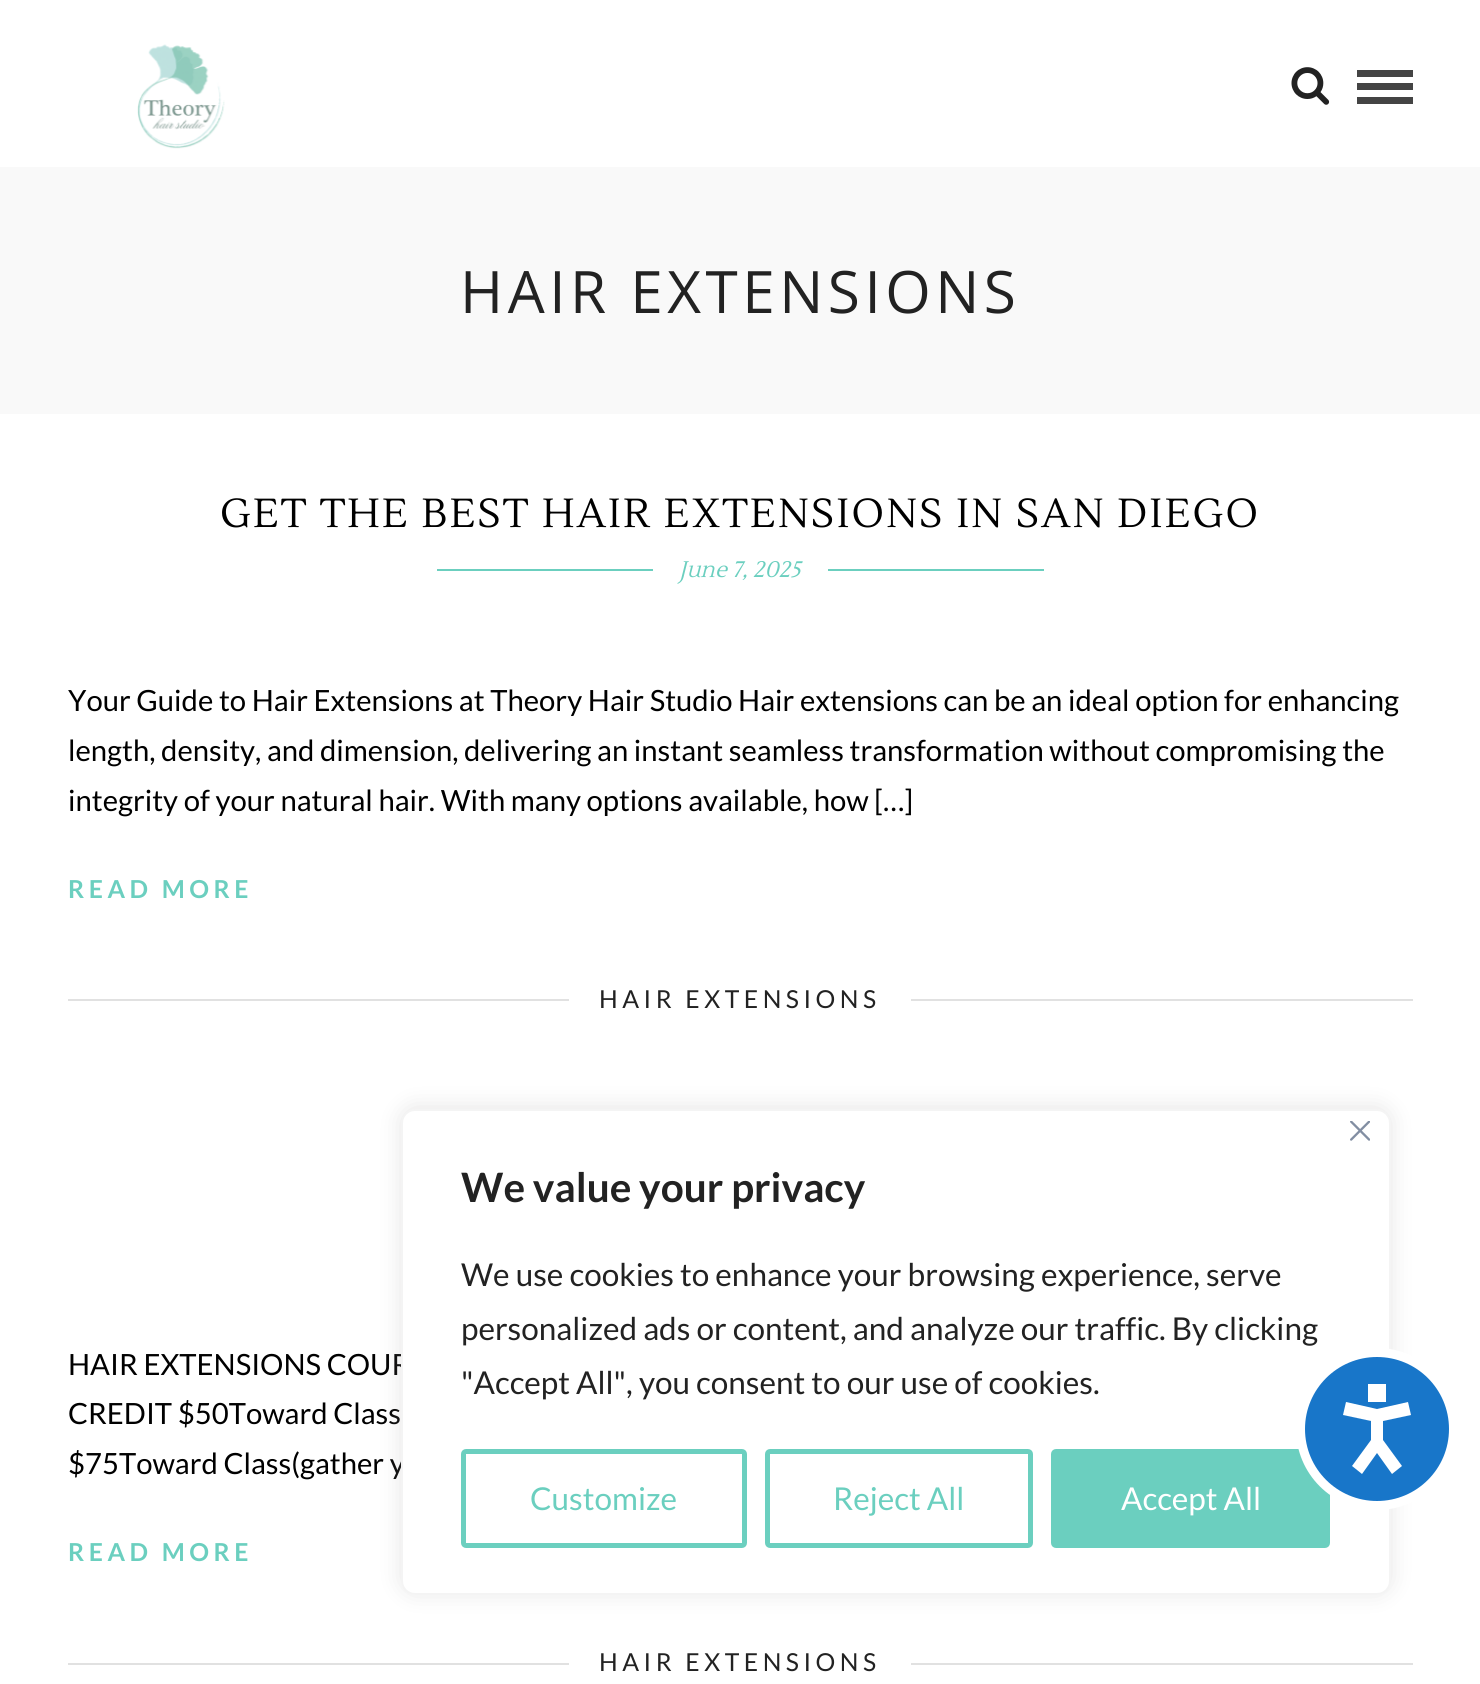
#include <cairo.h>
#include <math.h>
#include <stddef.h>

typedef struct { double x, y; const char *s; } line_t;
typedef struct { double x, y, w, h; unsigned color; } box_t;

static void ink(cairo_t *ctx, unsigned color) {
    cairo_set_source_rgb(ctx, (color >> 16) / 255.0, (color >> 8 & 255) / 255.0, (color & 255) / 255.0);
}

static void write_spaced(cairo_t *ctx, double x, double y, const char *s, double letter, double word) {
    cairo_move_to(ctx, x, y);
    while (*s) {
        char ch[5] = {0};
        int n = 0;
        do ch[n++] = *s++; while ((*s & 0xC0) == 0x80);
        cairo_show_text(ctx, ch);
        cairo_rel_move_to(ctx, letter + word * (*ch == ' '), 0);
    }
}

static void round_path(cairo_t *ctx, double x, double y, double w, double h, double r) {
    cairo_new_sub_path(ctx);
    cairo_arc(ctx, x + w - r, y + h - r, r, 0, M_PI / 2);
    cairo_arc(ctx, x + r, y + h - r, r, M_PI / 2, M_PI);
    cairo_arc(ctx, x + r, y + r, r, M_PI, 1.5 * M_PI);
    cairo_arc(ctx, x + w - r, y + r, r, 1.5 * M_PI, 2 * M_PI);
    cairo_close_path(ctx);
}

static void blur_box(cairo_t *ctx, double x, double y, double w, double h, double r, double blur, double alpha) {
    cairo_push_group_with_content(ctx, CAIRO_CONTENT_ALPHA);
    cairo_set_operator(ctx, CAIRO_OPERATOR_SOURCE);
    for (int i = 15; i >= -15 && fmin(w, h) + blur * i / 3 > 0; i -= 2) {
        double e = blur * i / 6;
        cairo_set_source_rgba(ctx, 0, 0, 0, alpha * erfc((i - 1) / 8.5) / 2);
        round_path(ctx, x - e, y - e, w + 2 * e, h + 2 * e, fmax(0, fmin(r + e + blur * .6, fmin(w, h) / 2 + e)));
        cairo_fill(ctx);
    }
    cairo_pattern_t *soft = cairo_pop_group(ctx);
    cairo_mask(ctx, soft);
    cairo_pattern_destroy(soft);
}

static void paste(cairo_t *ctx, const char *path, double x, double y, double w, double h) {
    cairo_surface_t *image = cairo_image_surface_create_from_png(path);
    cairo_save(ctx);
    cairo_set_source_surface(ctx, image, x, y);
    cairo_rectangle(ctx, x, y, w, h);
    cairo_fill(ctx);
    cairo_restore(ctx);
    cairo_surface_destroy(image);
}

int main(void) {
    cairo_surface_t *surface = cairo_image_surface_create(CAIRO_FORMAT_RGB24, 1480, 1684);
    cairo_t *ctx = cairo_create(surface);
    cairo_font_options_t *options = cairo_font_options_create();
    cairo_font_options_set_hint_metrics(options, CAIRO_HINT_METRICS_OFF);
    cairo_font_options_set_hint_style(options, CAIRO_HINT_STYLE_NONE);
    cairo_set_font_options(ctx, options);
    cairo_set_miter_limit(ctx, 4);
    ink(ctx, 0xFFFFFF);
    cairo_paint(ctx);
    paste(ctx, "media/1.png", 137, 44, 88, 105);
    paste(ctx, "media/2.png", 1291, 67, 39, 38);
    {
        static const box_t items[] = {
            {1357, 70, 56, 7, 0x444444},
            {1357, 83, 56, 7, 0x444444},
            {1357, 97, 56, 7, 0x444444},
            {0, 167, 1480, 247, 0xF9F9F9},
        };
        for (size_t i = 0; i < sizeof items / sizeof *items; i++) {
            ink(ctx, items[i].color);
            cairo_rectangle(ctx, items[i].x, items[i].y, items[i].w, items[i].h);
            cairo_fill(ctx);
        }
    }
    cairo_select_font_face(ctx, "Open Sans", CAIRO_FONT_SLANT_NORMAL, CAIRO_FONT_WEIGHT_NORMAL);
    cairo_set_font_size(ctx, 58.5);
    ink(ctx, 0x222222);
    write_spaced(ctx, 460, 313, "HAIR EXTENSIONS", 4.5, 0);
    cairo_select_font_face(ctx, "Lustria", CAIRO_FONT_SLANT_NORMAL, CAIRO_FONT_WEIGHT_NORMAL);
    cairo_set_font_size(ctx, 40.5);
    ink(ctx, 0x000000);
    write_spaced(ctx, 220, 527, "GET THE BEST HAIR EXTENSIONS IN SAN DIEGO", 2.25, 0);
    ink(ctx, 0x6BCFBF);
    cairo_rectangle(ctx, 437, 569, 607, 2);
    cairo_fill(ctx);
    ink(ctx, 0xFFFFFF);
    cairo_rectangle(ctx, 653, 569, 175, 2);
    cairo_fill(ctx);
    cairo_select_font_face(ctx, "Lustria", CAIRO_FONT_SLANT_ITALIC, CAIRO_FONT_WEIGHT_NORMAL);
    cairo_set_font_size(ctx, 22.5);
    ink(ctx, 0x6BCFBF);
    cairo_move_to(ctx, 679, 577);
    cairo_show_text(ctx, "June 7, 2025");
    cairo_select_font_face(ctx, "Lato", CAIRO_FONT_SLANT_NORMAL, CAIRO_FONT_WEIGHT_NORMAL);
    cairo_set_font_size(ctx, 29.25);
    ink(ctx, 0x000000);
    {
        static const line_t items[] = {
            {68, 711, "Your Guide to Hair Extensions at Theory Hair Studio Hair extensions can be an ideal option for enhancing"},
            {68, 761, "length, density, and dimension, delivering an instant seamless transformation without compromising the"},
            {68, 811, "integrity of your natural hair. With many options available, how […]"},
        };
        for (size_t i = 0; i < sizeof items / sizeof *items; i++) {
            cairo_move_to(ctx, items[i].x, items[i].y);
            cairo_show_text(ctx, items[i].s);
        }
    }
    cairo_select_font_face(ctx, "Lato", CAIRO_FONT_SLANT_NORMAL, CAIRO_FONT_WEIGHT_BOLD);
    cairo_set_font_size(ctx, 24.75);
    ink(ctx, 0x6BCFBF);
    write_spaced(ctx, 68, 898, "READ MORE", 4.5, 0);
    ink(ctx, 0xE1E1E1);
    cairo_rectangle(ctx, 68, 999, 1345, 2);
    cairo_fill(ctx);
    ink(ctx, 0xFFFFFF);
    cairo_rectangle(ctx, 569, 999, 342, 2);
    cairo_fill(ctx);
    cairo_select_font_face(ctx, "Lato", CAIRO_FONT_SLANT_NORMAL, CAIRO_FONT_WEIGHT_NORMAL);
    ink(ctx, 0x222222);
    write_spaced(ctx, 599, 1008, "HAIR EXTENSIONS", 4.5, 0);
    cairo_set_font_size(ctx, 29.25);
    ink(ctx, 0x000000);
    {
        static const line_t items[] = {
            {68, 1375, "HAIR EXTENSIONS COUR"},
            {68, 1424, "CREDIT $50Toward Class"},
            {68, 1474, "$75Toward Class(gather y"},
        };
        for (size_t i = 0; i < sizeof items / sizeof *items; i++) {
            cairo_move_to(ctx, items[i].x, items[i].y);
            cairo_show_text(ctx, items[i].s);
        }
    }
    cairo_select_font_face(ctx, "Lato", CAIRO_FONT_SLANT_NORMAL, CAIRO_FONT_WEIGHT_BOLD);
    cairo_set_font_size(ctx, 24.75);
    ink(ctx, 0x6BCFBF);
    write_spaced(ctx, 68, 1561, "READ MORE", 4.5, 0);
    ink(ctx, 0xE1E1E1);
    cairo_rectangle(ctx, 68, 1663, 1345, 2);
    cairo_fill(ctx);
    ink(ctx, 0xFFFFFF);
    cairo_rectangle(ctx, 569, 1663, 342, 2);
    cairo_fill(ctx);
    cairo_select_font_face(ctx, "Lato", CAIRO_FONT_SLANT_NORMAL, CAIRO_FONT_WEIGHT_NORMAL);
    ink(ctx, 0x222222);
    write_spaced(ctx, 599, 1671, "HAIR EXTENSIONS", 4.5, 0);
    ink(ctx, 0xACABAB);
    blur_box(ctx, 401, 1107, 990, 486, 14, 11, 0.3);
    ink(ctx, 0xFFFFFF);
    round_path(ctx, 402, 1110, 988, 484, 13);
    cairo_fill_preserve(ctx);
    ink(ctx, 0xF4F4F4);
    cairo_stroke(ctx);
    paste(ctx, "media/3.png", 1350, 1121, 20, 20);
    cairo_select_font_face(ctx, "Lato", CAIRO_FONT_SLANT_NORMAL, CAIRO_FONT_WEIGHT_BOLD);
    cairo_set_font_size(ctx, 40.5);
    ink(ctx, 0x222222);
    cairo_move_to(ctx, 461, 1202);
    cairo_show_text(ctx, "We value your privacy");
    cairo_select_font_face(ctx, "Lato", CAIRO_FONT_SLANT_NORMAL, CAIRO_FONT_WEIGHT_NORMAL);
    cairo_set_font_size(ctx, 31.5);
    {
        static const line_t items[] = {
            {461, 1286, "We use cookies to enhance your browsing experience, serve"},
            {461, 1340, "personalized ads or content, and analyze our traffic. By clicking"},
            {461, 1394, "\"Accept All\", you consent to our use of cookies."},
        };
        for (size_t i = 0; i < sizeof items / sizeof *items; i++) {
            cairo_move_to(ctx, items[i].x, items[i].y);
            cairo_show_text(ctx, items[i].s);
        }
    }
    round_path(ctx, 463.5, 1451.5, 281, 94, 2.5);
    ink(ctx, 0x6BCFBF);
    cairo_set_line_width(ctx, 5);
    cairo_stroke(ctx);
    cairo_move_to(ctx, 530, 1510);
    cairo_show_text(ctx, "Customize");
    round_path(ctx, 767.5, 1451.5, 263, 94, 2.5);
    cairo_stroke(ctx);
    cairo_move_to(ctx, 833, 1510);
    cairo_show_text(ctx, "Reject All");
    round_path(ctx, 1053.5, 1451.5, 274, 94, 2.5);
    cairo_fill_preserve(ctx);
    cairo_stroke(ctx);
    ink(ctx, 0xFFFFFF);
    cairo_move_to(ctx, 1121, 1510);
    cairo_show_text(ctx, "Accept All");
    ink(ctx, 0x1876C9);
    cairo_new_path(ctx);
    cairo_arc(ctx, 1377, 1429, 76.5, 0, 2 * M_PI);
    cairo_fill_preserve(ctx);
    ink(ctx, 0xFFFFFF);
    cairo_set_line_width(ctx, 9);
    cairo_stroke(ctx);
    cairo_new_path(ctx);
    cairo_move_to(ctx, 1371, 1421);
    cairo_line_to(ctx, 1343, 1415);
    cairo_line_to(ctx, 1346, 1402);
    cairo_line_to(ctx, 1377, 1409);
    cairo_line_to(ctx, 1408, 1402);
    cairo_line_to(ctx, 1411, 1415);
    cairo_line_to(ctx, 1383, 1421);
    cairo_line_to(ctx, 1383, 1440);
    cairo_line_to(ctx, 1402, 1466);
    cairo_line_to(ctx, 1392, 1474);
    cairo_line_to(ctx, 1377, 1453);
    cairo_line_to(ctx, 1362, 1474);
    cairo_line_to(ctx, 1352, 1466);
    cairo_line_to(ctx, 1371, 1440);
    cairo_close_path(ctx);
    cairo_move_to(ctx, 1368, 1384);
    cairo_line_to(ctx, 1386, 1384);
    cairo_line_to(ctx, 1386, 1402);
    cairo_line_to(ctx, 1368, 1402);
    cairo_close_path(ctx);
    cairo_fill(ctx);
    cairo_surface_write_to_png(surface, "image.png");
    cairo_font_options_destroy(options);
    cairo_destroy(ctx);
    cairo_surface_destroy(surface);
    return 0;
}
